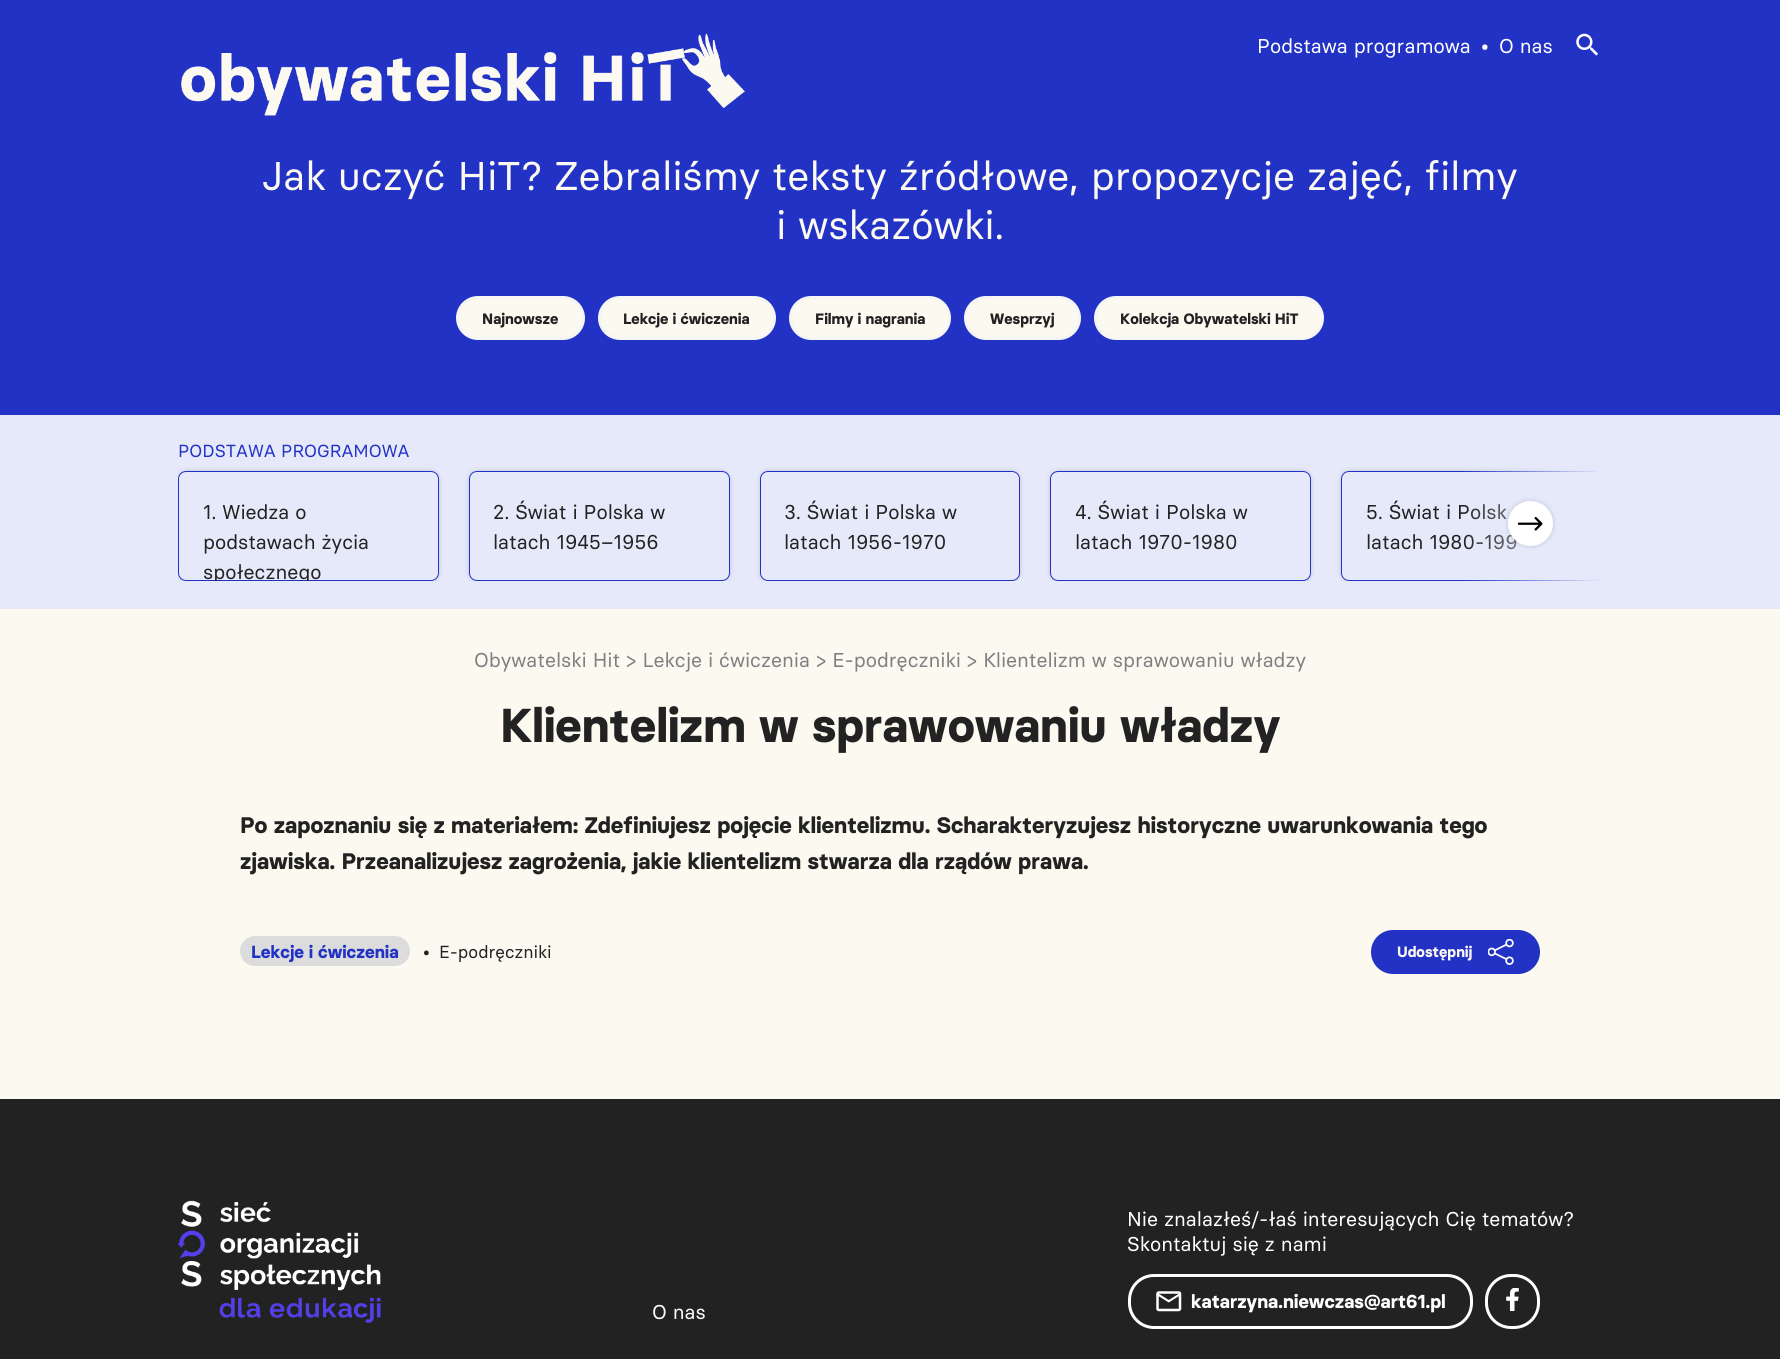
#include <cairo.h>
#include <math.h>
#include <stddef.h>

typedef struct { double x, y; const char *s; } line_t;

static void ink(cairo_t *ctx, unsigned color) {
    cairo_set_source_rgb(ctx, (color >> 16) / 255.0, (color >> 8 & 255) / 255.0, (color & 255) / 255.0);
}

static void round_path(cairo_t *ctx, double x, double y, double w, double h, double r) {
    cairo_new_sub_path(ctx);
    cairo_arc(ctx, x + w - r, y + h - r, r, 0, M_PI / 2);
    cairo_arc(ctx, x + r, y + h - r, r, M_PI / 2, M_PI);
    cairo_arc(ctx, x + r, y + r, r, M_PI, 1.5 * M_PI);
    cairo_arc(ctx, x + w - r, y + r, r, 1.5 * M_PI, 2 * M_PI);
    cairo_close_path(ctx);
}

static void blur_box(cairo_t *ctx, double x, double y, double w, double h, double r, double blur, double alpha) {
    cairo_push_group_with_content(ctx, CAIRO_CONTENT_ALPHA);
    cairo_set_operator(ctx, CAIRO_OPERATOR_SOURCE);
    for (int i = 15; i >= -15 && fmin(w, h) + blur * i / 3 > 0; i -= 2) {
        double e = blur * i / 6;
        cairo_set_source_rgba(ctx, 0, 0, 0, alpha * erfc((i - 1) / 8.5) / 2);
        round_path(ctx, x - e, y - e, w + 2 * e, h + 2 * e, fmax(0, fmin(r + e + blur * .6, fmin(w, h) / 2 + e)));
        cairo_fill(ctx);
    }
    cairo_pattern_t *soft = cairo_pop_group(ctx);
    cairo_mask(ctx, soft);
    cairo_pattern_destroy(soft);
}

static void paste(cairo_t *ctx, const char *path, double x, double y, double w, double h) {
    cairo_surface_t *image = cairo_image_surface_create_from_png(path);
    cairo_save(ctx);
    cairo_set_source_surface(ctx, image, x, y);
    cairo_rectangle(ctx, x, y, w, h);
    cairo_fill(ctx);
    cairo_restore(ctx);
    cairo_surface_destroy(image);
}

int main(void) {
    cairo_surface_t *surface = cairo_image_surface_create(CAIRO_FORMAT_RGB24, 1780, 1359);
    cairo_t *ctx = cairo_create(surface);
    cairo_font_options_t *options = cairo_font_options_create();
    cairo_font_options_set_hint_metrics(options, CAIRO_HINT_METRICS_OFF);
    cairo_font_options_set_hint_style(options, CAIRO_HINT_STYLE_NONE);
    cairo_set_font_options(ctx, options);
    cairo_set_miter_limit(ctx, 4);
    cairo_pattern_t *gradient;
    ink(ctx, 0xFBF9F0);
    cairo_paint(ctx);
    ink(ctx, 0x2232C5);
    cairo_rectangle(ctx, 0, 0, 1780, 415);
    cairo_fill(ctx);
    paste(ctx, "media/1.png", 181, 33, 564, 83);
    cairo_select_font_face(ctx, "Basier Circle", CAIRO_FONT_SLANT_NORMAL, CAIRO_FONT_WEIGHT_NORMAL);
    cairo_set_font_size(ctx, 20);
    ink(ctx, 0xFFFFFF);
    {
        static const line_t items[] = {
            {1257, 53, "Podstawa programowa"},
            {1481, 53, "•"},
            {1499, 53, "O nas"},
        };
        for (size_t i = 0; i < sizeof items / sizeof *items; i++) {
            cairo_move_to(ctx, items[i].x, items[i].y);
            cairo_show_text(ctx, items[i].s);
        }
    }
    paste(ctx, "media/2.png", 1576, 33, 22, 23);
    cairo_set_font_size(ctx, 40);
    ink(ctx, 0xFBF9F0);
    cairo_move_to(ctx, 262, 190);
    cairo_show_text(ctx, "Jak uczyć HiT? Zebraliśmy teksty źródłowe, propozycje zajęć, filmy");
    cairo_move_to(ctx, 776, 239);
    cairo_show_text(ctx, "i wskazówki.");
    round_path(ctx, 457.5, 297.5, 126, 41, 20.5);
    cairo_fill_preserve(ctx);
    ink(ctx, 0xF5F5F5);
    cairo_set_line_width(ctx, 3);
    cairo_stroke(ctx);
    cairo_select_font_face(ctx, "Basier Circle", CAIRO_FONT_SLANT_NORMAL, CAIRO_FONT_WEIGHT_BOLD);
    cairo_set_font_size(ctx, 15);
    ink(ctx, 0x222222);
    cairo_move_to(ctx, 482, 324);
    cairo_show_text(ctx, "Najnowsze");
    ink(ctx, 0xFBF9F0);
    round_path(ctx, 599.5, 297.5, 175, 41, 20.5);
    cairo_fill_preserve(ctx);
    ink(ctx, 0xF5F5F5);
    cairo_stroke(ctx);
    ink(ctx, 0x222222);
    cairo_move_to(ctx, 623, 324);
    cairo_show_text(ctx, "Lekcje i ćwiczenia");
    ink(ctx, 0xFBF9F0);
    round_path(ctx, 790.5, 297.5, 159, 41, 20.5);
    cairo_fill_preserve(ctx);
    ink(ctx, 0xF5F5F5);
    cairo_stroke(ctx);
    ink(ctx, 0x222222);
    cairo_move_to(ctx, 815, 324);
    cairo_show_text(ctx, "Filmy i nagrania");
    ink(ctx, 0xFBF9F0);
    round_path(ctx, 965.5, 297.5, 114, 41, 20.5);
    cairo_fill_preserve(ctx);
    ink(ctx, 0xF5F5F5);
    cairo_stroke(ctx);
    ink(ctx, 0x222222);
    cairo_move_to(ctx, 990, 324);
    cairo_show_text(ctx, "Wesprzyj");
    ink(ctx, 0xFBF9F0);
    round_path(ctx, 1095.5, 297.5, 227, 41, 20.5);
    cairo_fill_preserve(ctx);
    ink(ctx, 0xF5F5F5);
    cairo_stroke(ctx);
    ink(ctx, 0x222222);
    cairo_move_to(ctx, 1120, 324);
    cairo_show_text(ctx, "Kolekcja Obywatelski HiT");
    ink(ctx, 0xE5E9FA);
    cairo_rectangle(ctx, 0, 415, 1780, 194);
    cairo_fill(ctx);
    cairo_select_font_face(ctx, "Basier Circle", CAIRO_FONT_SLANT_NORMAL, CAIRO_FONT_WEIGHT_NORMAL);
    cairo_set_font_size(ctx, 17.5);
    ink(ctx, 0x2232C5);
    cairo_move_to(ctx, 178, 457);
    cairo_show_text(ctx, "PODSTAWA PROGRAMOWA");
    cairo_save(ctx);
    cairo_rectangle(ctx, 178, 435, 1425, 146);
    cairo_clip(ctx);
    cairo_set_fill_rule(ctx, CAIRO_FILL_RULE_EVEN_ODD);
    cairo_new_path(ctx);
    cairo_move_to(ctx, 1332, 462);
    cairo_line_to(ctx, 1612, 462);
    cairo_line_to(ctx, 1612, 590);
    cairo_line_to(ctx, 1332, 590);
    cairo_close_path(ctx);
    cairo_move_to(ctx, 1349, 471);
    cairo_line_to(ctx, 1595, 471);
    cairo_curve_to(ctx, 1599.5, 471, 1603, 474.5, 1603, 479);
    cairo_line_to(ctx, 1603, 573);
    cairo_curve_to(ctx, 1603, 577.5, 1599.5, 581, 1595, 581);
    cairo_line_to(ctx, 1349, 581);
    cairo_curve_to(ctx, 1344.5, 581, 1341, 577.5, 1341, 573);
    cairo_line_to(ctx, 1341, 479);
    cairo_curve_to(ctx, 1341, 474.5, 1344.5, 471, 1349, 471);
    cairo_close_path(ctx);
    cairo_clip(ctx);
    ink(ctx, 0x000000);
    blur_box(ctx, 1341, 471, 262, 110, 8, 2.5, 0.16);
    cairo_restore(ctx);
    round_path(ctx, 1341.5, 471.5, 261, 109, 7.5);
    cairo_set_line_width(ctx, 1);
    cairo_stroke(ctx);
    cairo_set_font_size(ctx, 20);
    ink(ctx, 0x222222);
    cairo_move_to(ctx, 1366, 519);
    cairo_show_text(ctx, "5. Świat i Polsk");
    cairo_move_to(ctx, 1366, 549);
    cairo_show_text(ctx, "latach 1980-199");
    gradient = cairo_pattern_create_linear(1604, 508, 1461, 508);
    cairo_pattern_add_color_stop_rgba(gradient, 0, 0.898, 0.914, 0.98, 1);
    cairo_pattern_add_color_stop_rgba(gradient, 1, 0.898, 0.914, 0.98, 0);
    cairo_set_source(ctx, gradient);
    cairo_pattern_destroy(gradient);
    cairo_rectangle(ctx, 1464, 467, 139, 114);
    cairo_fill(ctx);
    cairo_save(ctx);
    cairo_rectangle(ctx, 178, 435, 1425, 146);
    cairo_clip(ctx);
    cairo_set_fill_rule(ctx, CAIRO_FILL_RULE_EVEN_ODD);
    cairo_new_path(ctx);
    cairo_move_to(ctx, 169, 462);
    cairo_line_to(ctx, 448, 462);
    cairo_line_to(ctx, 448, 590);
    cairo_line_to(ctx, 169, 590);
    cairo_close_path(ctx);
    cairo_move_to(ctx, 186, 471);
    cairo_line_to(ctx, 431, 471);
    cairo_curve_to(ctx, 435.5, 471, 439, 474.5, 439, 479);
    cairo_line_to(ctx, 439, 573);
    cairo_curve_to(ctx, 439, 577.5, 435.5, 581, 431, 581);
    cairo_line_to(ctx, 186, 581);
    cairo_curve_to(ctx, 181.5, 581, 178, 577.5, 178, 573);
    cairo_line_to(ctx, 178, 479);
    cairo_curve_to(ctx, 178, 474.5, 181.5, 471, 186, 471);
    cairo_close_path(ctx);
    cairo_clip(ctx);
    ink(ctx, 0x000000);
    blur_box(ctx, 178, 471, 261, 110, 8, 2.5, 0.16);
    cairo_restore(ctx);
    round_path(ctx, 178.5, 471.5, 260, 109, 7.5);
    ink(ctx, 0x2232C5);
    cairo_stroke(ctx);
    ink(ctx, 0x222222);
    cairo_move_to(ctx, 203, 519);
    cairo_show_text(ctx, "1. Wiedza o");
    cairo_move_to(ctx, 203, 549);
    cairo_show_text(ctx, "podstawach życia");
    cairo_save(ctx);
    cairo_rectangle(ctx, 178, 435, 1425, 146);
    cairo_clip(ctx);
    cairo_move_to(ctx, 203, 579);
    cairo_show_text(ctx, "społecznego");
    cairo_restore(ctx);
    cairo_save(ctx);
    cairo_rectangle(ctx, 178, 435, 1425, 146);
    cairo_clip(ctx);
    cairo_set_fill_rule(ctx, CAIRO_FILL_RULE_EVEN_ODD);
    cairo_new_path(ctx);
    cairo_move_to(ctx, 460, 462);
    cairo_line_to(ctx, 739, 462);
    cairo_line_to(ctx, 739, 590);
    cairo_line_to(ctx, 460, 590);
    cairo_close_path(ctx);
    cairo_move_to(ctx, 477, 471);
    cairo_line_to(ctx, 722, 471);
    cairo_curve_to(ctx, 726.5, 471, 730, 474.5, 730, 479);
    cairo_line_to(ctx, 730, 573);
    cairo_curve_to(ctx, 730, 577.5, 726.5, 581, 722, 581);
    cairo_line_to(ctx, 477, 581);
    cairo_curve_to(ctx, 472.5, 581, 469, 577.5, 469, 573);
    cairo_line_to(ctx, 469, 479);
    cairo_curve_to(ctx, 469, 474.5, 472.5, 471, 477, 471);
    cairo_close_path(ctx);
    cairo_clip(ctx);
    ink(ctx, 0x000000);
    blur_box(ctx, 469, 471, 261, 110, 8, 2.5, 0.16);
    cairo_restore(ctx);
    round_path(ctx, 469.5, 471.5, 260, 109, 7.5);
    ink(ctx, 0x2232C5);
    cairo_stroke(ctx);
    ink(ctx, 0x222222);
    cairo_move_to(ctx, 493, 519);
    cairo_show_text(ctx, "2. Świat i Polska w");
    cairo_move_to(ctx, 493, 549);
    cairo_show_text(ctx, "latach 1945–1956");
    cairo_save(ctx);
    cairo_rectangle(ctx, 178, 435, 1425, 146);
    cairo_clip(ctx);
    cairo_set_fill_rule(ctx, CAIRO_FILL_RULE_EVEN_ODD);
    cairo_new_path(ctx);
    cairo_move_to(ctx, 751, 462);
    cairo_line_to(ctx, 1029, 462);
    cairo_line_to(ctx, 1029, 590);
    cairo_line_to(ctx, 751, 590);
    cairo_close_path(ctx);
    cairo_move_to(ctx, 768, 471);
    cairo_line_to(ctx, 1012, 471);
    cairo_curve_to(ctx, 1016.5, 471, 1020, 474.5, 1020, 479);
    cairo_line_to(ctx, 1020, 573);
    cairo_curve_to(ctx, 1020, 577.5, 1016.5, 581, 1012, 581);
    cairo_line_to(ctx, 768, 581);
    cairo_curve_to(ctx, 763.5, 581, 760, 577.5, 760, 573);
    cairo_line_to(ctx, 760, 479);
    cairo_curve_to(ctx, 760, 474.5, 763.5, 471, 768, 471);
    cairo_close_path(ctx);
    cairo_clip(ctx);
    ink(ctx, 0x000000);
    blur_box(ctx, 760, 471, 260, 110, 8, 2.5, 0.16);
    cairo_restore(ctx);
    round_path(ctx, 760.5, 471.5, 259, 109, 7.5);
    ink(ctx, 0x2232C5);
    cairo_stroke(ctx);
    ink(ctx, 0x222222);
    cairo_move_to(ctx, 784, 519);
    cairo_show_text(ctx, "3. Świat i Polska w");
    cairo_move_to(ctx, 784, 549);
    cairo_show_text(ctx, "latach 1956-1970");
    cairo_save(ctx);
    cairo_rectangle(ctx, 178, 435, 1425, 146);
    cairo_clip(ctx);
    cairo_set_fill_rule(ctx, CAIRO_FILL_RULE_EVEN_ODD);
    cairo_new_path(ctx);
    cairo_move_to(ctx, 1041, 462);
    cairo_line_to(ctx, 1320, 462);
    cairo_line_to(ctx, 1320, 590);
    cairo_line_to(ctx, 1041, 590);
    cairo_close_path(ctx);
    cairo_move_to(ctx, 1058, 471);
    cairo_line_to(ctx, 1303, 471);
    cairo_curve_to(ctx, 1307.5, 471, 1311, 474.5, 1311, 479);
    cairo_line_to(ctx, 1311, 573);
    cairo_curve_to(ctx, 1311, 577.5, 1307.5, 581, 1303, 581);
    cairo_line_to(ctx, 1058, 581);
    cairo_curve_to(ctx, 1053.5, 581, 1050, 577.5, 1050, 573);
    cairo_line_to(ctx, 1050, 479);
    cairo_curve_to(ctx, 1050, 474.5, 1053.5, 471, 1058, 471);
    cairo_close_path(ctx);
    cairo_clip(ctx);
    ink(ctx, 0x000000);
    blur_box(ctx, 1050, 471, 261, 110, 8, 2.5, 0.16);
    cairo_restore(ctx);
    round_path(ctx, 1050.5, 471.5, 260, 109, 7.5);
    ink(ctx, 0x2232C5);
    cairo_stroke(ctx);
    ink(ctx, 0x222222);
    cairo_move_to(ctx, 1075, 519);
    cairo_show_text(ctx, "4. Świat i Polska w");
    cairo_move_to(ctx, 1075, 549);
    cairo_show_text(ctx, "latach 1970-1980");
    ink(ctx, 0x000000);
    blur_box(ctx, 1508, 501, 45, 45, 22.5, 2.5, 0.16);
    ink(ctx, 0xFFFFFF);
    cairo_arc(ctx, 1530.5, 523.5, 22.5, 0, 2 * M_PI);
    cairo_fill(ctx);
    paste(ctx, "media/3.png", 1518, 516, 25, 15);
    ink(ctx, 0x808080);
    cairo_move_to(ctx, 474, 667);
    cairo_show_text(ctx, "Obywatelski Hit > Lekcje i ćwiczenia > E-podręczniki > Klientelizm w sprawowaniu władzy");
    cairo_select_font_face(ctx, "Basier Circle", CAIRO_FONT_SLANT_NORMAL, CAIRO_FONT_WEIGHT_BOLD);
    cairo_set_font_size(ctx, 47.5);
    ink(ctx, 0x222222);
    cairo_move_to(ctx, 500, 742);
    cairo_show_text(ctx, "Klientelizm w sprawowaniu władzy");
    cairo_set_font_size(ctx, 22.5);
    cairo_move_to(ctx, 240, 833);
    cairo_show_text(ctx, "Po zapoznaniu się z materiałem: Zdefiniujesz pojęcie klientelizmu. Scharakteryzujesz historyczne uwarunkowania tego");
    cairo_move_to(ctx, 240, 869);
    cairo_show_text(ctx, "zjawiska. Przeanalizujesz zagrożenia, jakie klientelizm stwarza dla rządów prawa.");
    ink(ctx, 0xDCDCDC);
    round_path(ctx, 240, 936, 170, 30, 15);
    cairo_fill(ctx);
    cairo_set_font_size(ctx, 17.5);
    ink(ctx, 0x2232C5);
    cairo_move_to(ctx, 251, 958);
    cairo_show_text(ctx, "Lekcje i ćwiczenia");
    cairo_select_font_face(ctx, "Basier Circle", CAIRO_FONT_SLANT_NORMAL, CAIRO_FONT_WEIGHT_NORMAL);
    ink(ctx, 0x222222);
    cairo_move_to(ctx, 423, 958);
    cairo_show_text(ctx, "•");
    cairo_move_to(ctx, 439, 958);
    cairo_show_text(ctx, "E-podręczniki");
    ink(ctx, 0x2232C5);
    round_path(ctx, 1372.5, 931.5, 166, 41, 20.5);
    cairo_fill_preserve(ctx);
    cairo_set_line_width(ctx, 3);
    cairo_stroke(ctx);
    cairo_select_font_face(ctx, "Basier Circle", CAIRO_FONT_SLANT_NORMAL, CAIRO_FONT_WEIGHT_BOLD);
    cairo_set_font_size(ctx, 15);
    ink(ctx, 0xFBF9F0);
    cairo_move_to(ctx, 1397, 957);
    cairo_show_text(ctx, "Udostępnij");
    paste(ctx, "media/4.png", 1488, 939, 26, 26);
    ink(ctx, 0x222222);
    cairo_rectangle(ctx, 0, 1099, 1780, 260);
    cairo_fill(ctx);
    paste(ctx, "media/5.png", 177, 1200, 204, 123);
    cairo_select_font_face(ctx, "Basier Circle", CAIRO_FONT_SLANT_NORMAL, CAIRO_FONT_WEIGHT_NORMAL);
    cairo_set_font_size(ctx, 20);
    ink(ctx, 0xFFFFFF);
    {
        static const line_t items[] = {
            {652, 1319, "O nas"},
            {1127, 1226, "Nie znalazłeś/-łaś interesujących Cię tematów?"},
            {1127, 1251, "Skontaktuj się z nami"},
        };
        for (size_t i = 0; i < sizeof items / sizeof *items; i++) {
            cairo_move_to(ctx, items[i].x, items[i].y);
            cairo_show_text(ctx, items[i].s);
        }
    }
    round_path(ctx, 1129.5, 1275.5, 342, 52, 24.5);
    cairo_stroke(ctx);
    paste(ctx, "media/6.png", 1156, 1291, 26, 21);
    cairo_select_font_face(ctx, "Basier Circle", CAIRO_FONT_SLANT_NORMAL, CAIRO_FONT_WEIGHT_BOLD);
    cairo_set_font_size(ctx, 18.75);
    cairo_move_to(ctx, 1191, 1308);
    cairo_show_text(ctx, "katarzyna.niewczas@art61.pl");
    round_path(ctx, 1486.5, 1275.5, 52, 52, 24.5);
    cairo_stroke(ctx);
    paste(ctx, "media/7.png", 1506, 1288, 13, 23);
    cairo_surface_write_to_png(surface, "image.png");
    cairo_font_options_destroy(options);
    cairo_destroy(ctx);
    cairo_surface_destroy(surface);
    return 0;
}
